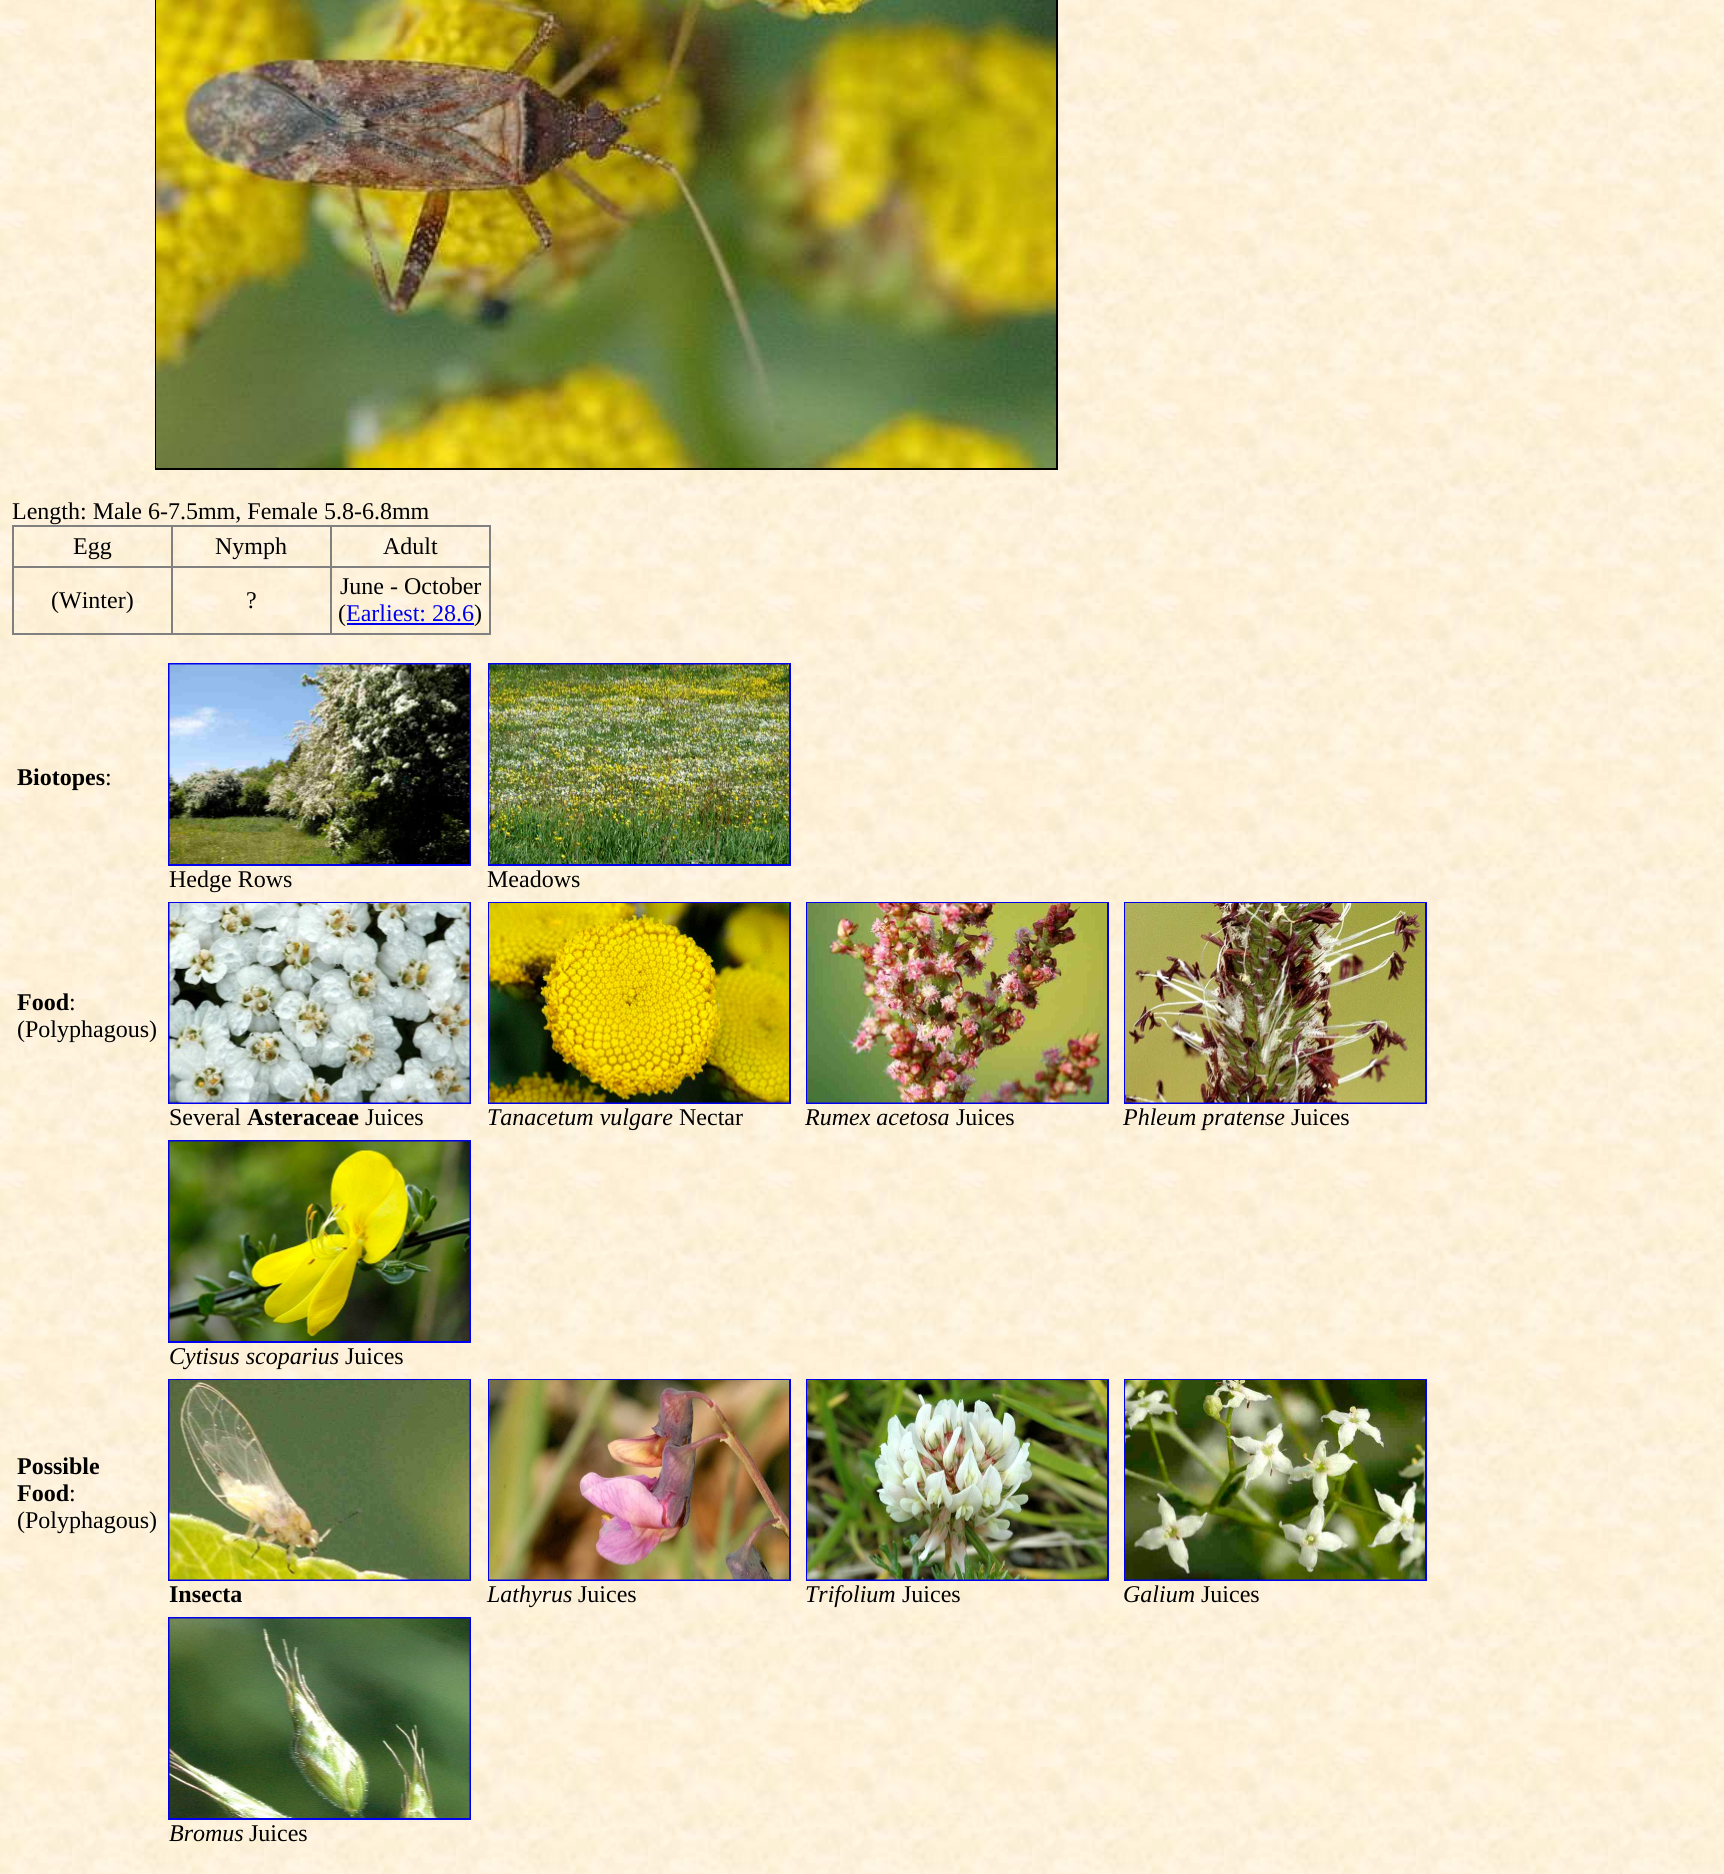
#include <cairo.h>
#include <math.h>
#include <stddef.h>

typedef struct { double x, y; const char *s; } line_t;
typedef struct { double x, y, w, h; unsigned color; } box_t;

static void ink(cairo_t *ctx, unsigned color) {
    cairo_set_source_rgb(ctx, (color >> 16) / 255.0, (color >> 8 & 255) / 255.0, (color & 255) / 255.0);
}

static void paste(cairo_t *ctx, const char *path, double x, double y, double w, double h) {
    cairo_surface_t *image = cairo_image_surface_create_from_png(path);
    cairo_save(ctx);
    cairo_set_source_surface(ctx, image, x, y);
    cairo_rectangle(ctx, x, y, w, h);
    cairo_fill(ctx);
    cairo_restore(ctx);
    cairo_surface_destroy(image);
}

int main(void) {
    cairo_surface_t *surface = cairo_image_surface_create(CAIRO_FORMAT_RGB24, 1724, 1874);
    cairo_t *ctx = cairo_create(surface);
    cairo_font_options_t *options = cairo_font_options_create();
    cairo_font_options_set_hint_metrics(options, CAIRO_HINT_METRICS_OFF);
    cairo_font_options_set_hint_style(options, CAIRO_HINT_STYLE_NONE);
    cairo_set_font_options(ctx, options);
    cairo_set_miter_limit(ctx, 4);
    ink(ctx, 0xFFFFFF);
    cairo_paint(ctx);
    paste(ctx, "media/1.png", 0, 0, 1724, 1874);
    cairo_rectangle(ctx, 156, -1, 901, 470);
    ink(ctx, 0x000000);
    cairo_stroke(ctx);
    paste(ctx, "media/2.png", 156, 0, 900, 468);
    cairo_select_font_face(ctx, "Liberation Serif", CAIRO_FONT_SLANT_NORMAL, CAIRO_FONT_WEIGHT_NORMAL);
    cairo_set_font_size(ctx, 24);
    cairo_move_to(ctx, 12, 519);
    cairo_show_text(ctx, "Length: Male 6-7.5mm, Female 5.8-6.8mm");
    {
        static const box_t items[] = {
            {12, 525, 479, 2, 0x808080},
            {489, 525, 2, 110, 0x808080},
            {12, 633, 479, 2, 0x808080},
            {12, 525, 2, 110, 0x808080},
        };
        for (size_t i = 0; i < sizeof items / sizeof *items; i++) {
            ink(ctx, items[i].color);
            cairo_rectangle(ctx, items[i].x, items[i].y, items[i].w, items[i].h);
            cairo_fill(ctx);
        }
    }
    ink(ctx, 0x000000);
    cairo_move_to(ctx, 73, 554);
    cairo_show_text(ctx, "Egg");
    {
        static const box_t items[] = {
            {330, 566, 161, 2, 0x808080},
            {330, 566, 2, 69, 0x808080},
            {171, 566, 161, 2, 0x808080},
            {171, 566, 2, 69, 0x808080},
            {12, 566, 161, 2, 0x808080},
            {171, 525, 2, 42, 0x808080},
        };
        for (size_t i = 0; i < sizeof items / sizeof *items; i++) {
            ink(ctx, items[i].color);
            cairo_rectangle(ctx, items[i].x, items[i].y, items[i].w, items[i].h);
            cairo_fill(ctx);
        }
    }
    ink(ctx, 0x000000);
    cairo_move_to(ctx, 215, 554);
    cairo_show_text(ctx, "Nymph");
    ink(ctx, 0x808080);
    cairo_rectangle(ctx, 330, 525, 2, 42);
    cairo_fill(ctx);
    ink(ctx, 0x000000);
    {
        static const line_t items[] = {
            {383, 554, "Adult"},
            {51, 608, "(Winter)"},
            {246, 608, "?"},
            {340, 594, "June - October"},
            {338, 621, "("},
        };
        for (size_t i = 0; i < sizeof items / sizeof *items; i++) {
            cairo_move_to(ctx, items[i].x, items[i].y);
            cairo_show_text(ctx, items[i].s);
        }
    }
    ink(ctx, 0x0000EE);
    cairo_move_to(ctx, 346, 621);
    cairo_show_text(ctx, "Earliest: 28.6");
    cairo_rectangle(ctx, 347, 623, 127, 2);
    cairo_fill(ctx);
    ink(ctx, 0x000000);
    cairo_move_to(ctx, 474, 621);
    cairo_show_text(ctx, ")");
    cairo_select_font_face(ctx, "Liberation Serif", CAIRO_FONT_SLANT_NORMAL, CAIRO_FONT_WEIGHT_BOLD);
    cairo_move_to(ctx, 17, 785);
    cairo_show_text(ctx, "Biotopes");
    cairo_select_font_face(ctx, "Liberation Serif", CAIRO_FONT_SLANT_NORMAL, CAIRO_FONT_WEIGHT_NORMAL);
    cairo_move_to(ctx, 105, 785);
    cairo_show_text(ctx, ":");
    cairo_rectangle(ctx, 169, 664, 301, 201);
    ink(ctx, 0x0000EE);
    cairo_stroke(ctx);
    paste(ctx, "media/3.png", 169, 664, 301, 200);
    ink(ctx, 0x000000);
    cairo_move_to(ctx, 169, 887);
    cairo_show_text(ctx, "Hedge Rows");
    cairo_rectangle(ctx, 489, 664, 301, 201);
    ink(ctx, 0x0000EE);
    cairo_stroke(ctx);
    paste(ctx, "media/4.png", 489, 664, 300, 200);
    ink(ctx, 0x000000);
    cairo_move_to(ctx, 487, 887);
    cairo_show_text(ctx, "Meadows");
    cairo_select_font_face(ctx, "Liberation Serif", CAIRO_FONT_SLANT_NORMAL, CAIRO_FONT_WEIGHT_BOLD);
    cairo_move_to(ctx, 17, 1010);
    cairo_show_text(ctx, "Food");
    cairo_select_font_face(ctx, "Liberation Serif", CAIRO_FONT_SLANT_NORMAL, CAIRO_FONT_WEIGHT_NORMAL);
    cairo_move_to(ctx, 69, 1010);
    cairo_show_text(ctx, ":");
    cairo_move_to(ctx, 17, 1037);
    cairo_show_text(ctx, "(Polyphagous)");
    cairo_rectangle(ctx, 169, 903, 301, 200);
    ink(ctx, 0x0000EE);
    cairo_stroke(ctx);
    paste(ctx, "media/5.png", 169, 903, 301, 200);
    ink(ctx, 0x000000);
    cairo_move_to(ctx, 169, 1125);
    cairo_show_text(ctx, "Several");
    cairo_select_font_face(ctx, "Liberation Serif", CAIRO_FONT_SLANT_NORMAL, CAIRO_FONT_WEIGHT_BOLD);
    cairo_move_to(ctx, 247, 1125);
    cairo_show_text(ctx, "Asteraceae");
    cairo_select_font_face(ctx, "Liberation Serif", CAIRO_FONT_SLANT_NORMAL, CAIRO_FONT_WEIGHT_NORMAL);
    cairo_move_to(ctx, 365, 1125);
    cairo_show_text(ctx, "Juices");
    cairo_rectangle(ctx, 489, 903, 301, 200);
    ink(ctx, 0x0000EE);
    cairo_stroke(ctx);
    paste(ctx, "media/6.png", 489, 903, 300, 200);
    cairo_select_font_face(ctx, "Liberation Serif", CAIRO_FONT_SLANT_ITALIC, CAIRO_FONT_WEIGHT_NORMAL);
    ink(ctx, 0x000000);
    cairo_move_to(ctx, 487, 1125);
    cairo_show_text(ctx, "Tanacetum vulgare");
    cairo_select_font_face(ctx, "Liberation Serif", CAIRO_FONT_SLANT_NORMAL, CAIRO_FONT_WEIGHT_NORMAL);
    cairo_move_to(ctx, 679, 1125);
    cairo_show_text(ctx, "Nectar");
    cairo_rectangle(ctx, 807, 903, 301, 200);
    ink(ctx, 0x0000EE);
    cairo_stroke(ctx);
    paste(ctx, "media/7.png", 807, 903, 300, 200);
    cairo_select_font_face(ctx, "Liberation Serif", CAIRO_FONT_SLANT_ITALIC, CAIRO_FONT_WEIGHT_NORMAL);
    ink(ctx, 0x000000);
    cairo_move_to(ctx, 805, 1125);
    cairo_show_text(ctx, "Rumex acetosa");
    cairo_select_font_face(ctx, "Liberation Serif", CAIRO_FONT_SLANT_NORMAL, CAIRO_FONT_WEIGHT_NORMAL);
    cairo_move_to(ctx, 956, 1125);
    cairo_show_text(ctx, "Juices");
    cairo_rectangle(ctx, 1125, 903, 301, 200);
    ink(ctx, 0x0000EE);
    cairo_stroke(ctx);
    paste(ctx, "media/8.png", 1125, 903, 300, 200);
    cairo_select_font_face(ctx, "Liberation Serif", CAIRO_FONT_SLANT_ITALIC, CAIRO_FONT_WEIGHT_NORMAL);
    ink(ctx, 0x000000);
    cairo_move_to(ctx, 1123, 1125);
    cairo_show_text(ctx, "Phleum pratense");
    cairo_select_font_face(ctx, "Liberation Serif", CAIRO_FONT_SLANT_NORMAL, CAIRO_FONT_WEIGHT_NORMAL);
    cairo_move_to(ctx, 1291, 1125);
    cairo_show_text(ctx, "Juices");
    cairo_rectangle(ctx, 169, 1141, 301, 201);
    ink(ctx, 0x0000EE);
    cairo_stroke(ctx);
    paste(ctx, "media/9.png", 169, 1141, 301, 200);
    cairo_select_font_face(ctx, "Liberation Serif", CAIRO_FONT_SLANT_ITALIC, CAIRO_FONT_WEIGHT_NORMAL);
    ink(ctx, 0x000000);
    cairo_move_to(ctx, 169, 1364);
    cairo_show_text(ctx, "Cytisus scoparius");
    cairo_select_font_face(ctx, "Liberation Serif", CAIRO_FONT_SLANT_NORMAL, CAIRO_FONT_WEIGHT_NORMAL);
    cairo_move_to(ctx, 345, 1364);
    cairo_show_text(ctx, "Juices");
    cairo_select_font_face(ctx, "Liberation Serif", CAIRO_FONT_SLANT_NORMAL, CAIRO_FONT_WEIGHT_BOLD);
    cairo_move_to(ctx, 17, 1474);
    cairo_show_text(ctx, "Possible");
    cairo_move_to(ctx, 17, 1501);
    cairo_show_text(ctx, "Food");
    cairo_select_font_face(ctx, "Liberation Serif", CAIRO_FONT_SLANT_NORMAL, CAIRO_FONT_WEIGHT_NORMAL);
    cairo_move_to(ctx, 69, 1501);
    cairo_show_text(ctx, ":");
    cairo_move_to(ctx, 17, 1528);
    cairo_show_text(ctx, "(Polyphagous)");
    cairo_rectangle(ctx, 169, 1380, 301, 200);
    ink(ctx, 0x0000EE);
    cairo_stroke(ctx);
    paste(ctx, "media/10.png", 169, 1380, 301, 200);
    cairo_select_font_face(ctx, "Liberation Serif", CAIRO_FONT_SLANT_NORMAL, CAIRO_FONT_WEIGHT_BOLD);
    ink(ctx, 0x000000);
    cairo_move_to(ctx, 169, 1602);
    cairo_show_text(ctx, "Insecta");
    cairo_rectangle(ctx, 489, 1380, 301, 200);
    ink(ctx, 0x0000EE);
    cairo_stroke(ctx);
    paste(ctx, "media/11.png", 489, 1380, 300, 200);
    cairo_select_font_face(ctx, "Liberation Serif", CAIRO_FONT_SLANT_ITALIC, CAIRO_FONT_WEIGHT_NORMAL);
    ink(ctx, 0x000000);
    cairo_move_to(ctx, 487, 1602);
    cairo_show_text(ctx, "Lathyrus");
    cairo_select_font_face(ctx, "Liberation Serif", CAIRO_FONT_SLANT_NORMAL, CAIRO_FONT_WEIGHT_NORMAL);
    cairo_move_to(ctx, 578, 1602);
    cairo_show_text(ctx, "Juices");
    cairo_rectangle(ctx, 807, 1380, 301, 200);
    ink(ctx, 0x0000EE);
    cairo_stroke(ctx);
    paste(ctx, "media/12.png", 807, 1380, 300, 200);
    cairo_select_font_face(ctx, "Liberation Serif", CAIRO_FONT_SLANT_ITALIC, CAIRO_FONT_WEIGHT_NORMAL);
    ink(ctx, 0x000000);
    cairo_move_to(ctx, 805, 1602);
    cairo_show_text(ctx, "Trifolium");
    cairo_select_font_face(ctx, "Liberation Serif", CAIRO_FONT_SLANT_NORMAL, CAIRO_FONT_WEIGHT_NORMAL);
    cairo_move_to(ctx, 902, 1602);
    cairo_show_text(ctx, "Juices");
    cairo_rectangle(ctx, 1125, 1380, 301, 200);
    ink(ctx, 0x0000EE);
    cairo_stroke(ctx);
    paste(ctx, "media/13.png", 1125, 1380, 300, 200);
    cairo_select_font_face(ctx, "Liberation Serif", CAIRO_FONT_SLANT_ITALIC, CAIRO_FONT_WEIGHT_NORMAL);
    ink(ctx, 0x000000);
    cairo_move_to(ctx, 1123, 1602);
    cairo_show_text(ctx, "Galium");
    cairo_select_font_face(ctx, "Liberation Serif", CAIRO_FONT_SLANT_NORMAL, CAIRO_FONT_WEIGHT_NORMAL);
    cairo_move_to(ctx, 1201, 1602);
    cairo_show_text(ctx, "Juices");
    cairo_rectangle(ctx, 169, 1618, 301, 201);
    ink(ctx, 0x0000EE);
    cairo_stroke(ctx);
    paste(ctx, "media/14.png", 169, 1618, 301, 200);
    cairo_select_font_face(ctx, "Liberation Serif", CAIRO_FONT_SLANT_ITALIC, CAIRO_FONT_WEIGHT_NORMAL);
    ink(ctx, 0x000000);
    cairo_move_to(ctx, 169, 1841);
    cairo_show_text(ctx, "Bromus");
    cairo_select_font_face(ctx, "Liberation Serif", CAIRO_FONT_SLANT_NORMAL, CAIRO_FONT_WEIGHT_NORMAL);
    cairo_move_to(ctx, 249, 1841);
    cairo_show_text(ctx, "Juices");
    cairo_surface_write_to_png(surface, "image.png");
    cairo_font_options_destroy(options);
    cairo_destroy(ctx);
    cairo_surface_destroy(surface);
    return 0;
}
